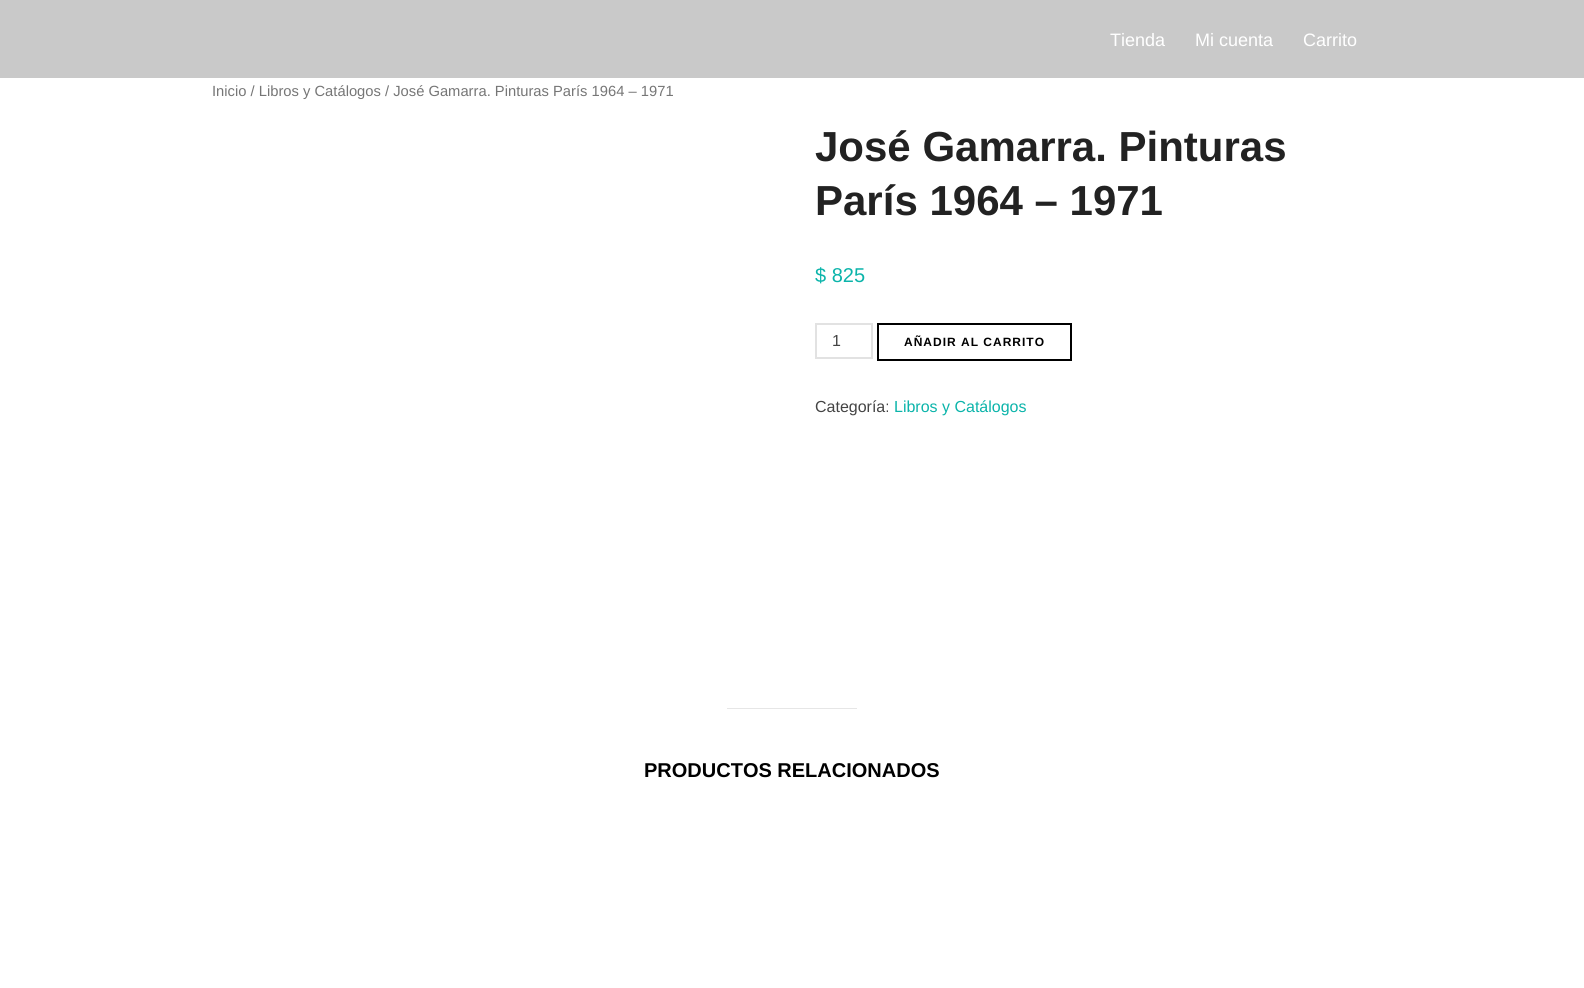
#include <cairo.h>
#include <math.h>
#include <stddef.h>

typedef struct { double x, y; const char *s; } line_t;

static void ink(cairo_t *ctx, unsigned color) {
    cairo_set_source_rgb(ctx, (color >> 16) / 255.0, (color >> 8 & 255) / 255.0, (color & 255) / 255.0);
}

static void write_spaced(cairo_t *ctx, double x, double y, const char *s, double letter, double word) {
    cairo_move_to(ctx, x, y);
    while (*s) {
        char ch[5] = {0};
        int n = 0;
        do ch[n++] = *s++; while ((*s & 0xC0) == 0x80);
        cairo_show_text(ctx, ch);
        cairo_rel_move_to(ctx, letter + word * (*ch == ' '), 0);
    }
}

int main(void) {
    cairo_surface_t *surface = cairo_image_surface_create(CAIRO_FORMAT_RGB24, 1584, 988);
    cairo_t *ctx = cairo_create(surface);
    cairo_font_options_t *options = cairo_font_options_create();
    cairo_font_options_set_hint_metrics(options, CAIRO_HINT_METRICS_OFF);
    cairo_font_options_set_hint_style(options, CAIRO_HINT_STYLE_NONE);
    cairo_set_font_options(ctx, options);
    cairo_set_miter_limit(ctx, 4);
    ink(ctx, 0xFFFFFF);
    cairo_paint(ctx);
    ink(ctx, 0xC9C9C9);
    cairo_rectangle(ctx, 0, 0, 1584, 78);
    cairo_fill(ctx);
    cairo_select_font_face(ctx, "Liberation Sans", CAIRO_FONT_SLANT_NORMAL, CAIRO_FONT_WEIGHT_NORMAL);
    cairo_set_font_size(ctx, 18);
    ink(ctx, 0xFFFFFF);
    {
        static const line_t items[] = {
            {1110, 46, "Tienda"},
            {1195, 46, "Mi cuenta"},
            {1303, 46, "Carrito"},
        };
        for (size_t i = 0; i < sizeof items / sizeof *items; i++) {
            cairo_move_to(ctx, items[i].x, items[i].y);
            cairo_show_text(ctx, items[i].s);
        }
    }
    cairo_set_font_size(ctx, 14.75);
    ink(ctx, 0x767676);
    cairo_move_to(ctx, 212, 96);
    cairo_show_text(ctx, "Inicio / Libros y Catálogos / José Gamarra. Pinturas París 1964 – 1971");
    cairo_select_font_face(ctx, "Liberation Sans", CAIRO_FONT_SLANT_NORMAL, CAIRO_FONT_WEIGHT_BOLD);
    cairo_set_font_size(ctx, 42);
    ink(ctx, 0x222222);
    cairo_move_to(ctx, 815, 161);
    cairo_show_text(ctx, "José Gamarra. Pinturas");
    cairo_move_to(ctx, 815, 215);
    cairo_show_text(ctx, "París 1964 – 1971");
    cairo_select_font_face(ctx, "Liberation Sans", CAIRO_FONT_SLANT_NORMAL, CAIRO_FONT_WEIGHT_NORMAL);
    cairo_set_font_size(ctx, 20);
    ink(ctx, 0x0BB4AA);
    cairo_move_to(ctx, 815, 282);
    cairo_show_text(ctx, "$ 825");
    cairo_rectangle(ctx, 816, 324, 56, 34);
    ink(ctx, 0xE2E2E2);
    cairo_stroke(ctx);
    cairo_set_font_size(ctx, 16);
    ink(ctx, 0x444444);
    cairo_move_to(ctx, 832, 346);
    cairo_show_text(ctx, "1");
    cairo_rectangle(ctx, 878, 324, 193, 36);
    ink(ctx, 0x000000);
    cairo_stroke(ctx);
    cairo_select_font_face(ctx, "Liberation Sans", CAIRO_FONT_SLANT_NORMAL, CAIRO_FONT_WEIGHT_BOLD);
    cairo_set_font_size(ctx, 12);
    write_spaced(ctx, 904, 346, "AÑADIR AL CARRITO", 1, 0);
    cairo_select_font_face(ctx, "Liberation Sans", CAIRO_FONT_SLANT_NORMAL, CAIRO_FONT_WEIGHT_NORMAL);
    cairo_set_font_size(ctx, 16);
    ink(ctx, 0x444444);
    cairo_move_to(ctx, 815, 412);
    cairo_show_text(ctx, "Categoría:");
    ink(ctx, 0x0BB4AA);
    cairo_move_to(ctx, 894, 412);
    cairo_show_text(ctx, "Libros y Catálogos");
    ink(ctx, 0xE6E6E6);
    cairo_rectangle(ctx, 727, 708, 130, 1);
    cairo_fill(ctx);
    cairo_select_font_face(ctx, "Liberation Sans", CAIRO_FONT_SLANT_NORMAL, CAIRO_FONT_WEIGHT_BOLD);
    cairo_set_font_size(ctx, 20);
    ink(ctx, 0x000000);
    cairo_move_to(ctx, 644, 777);
    cairo_show_text(ctx, "PRODUCTOS RELACIONADOS");
    cairo_surface_write_to_png(surface, "image.png");
    cairo_font_options_destroy(options);
    cairo_destroy(ctx);
    cairo_surface_destroy(surface);
    return 0;
}
